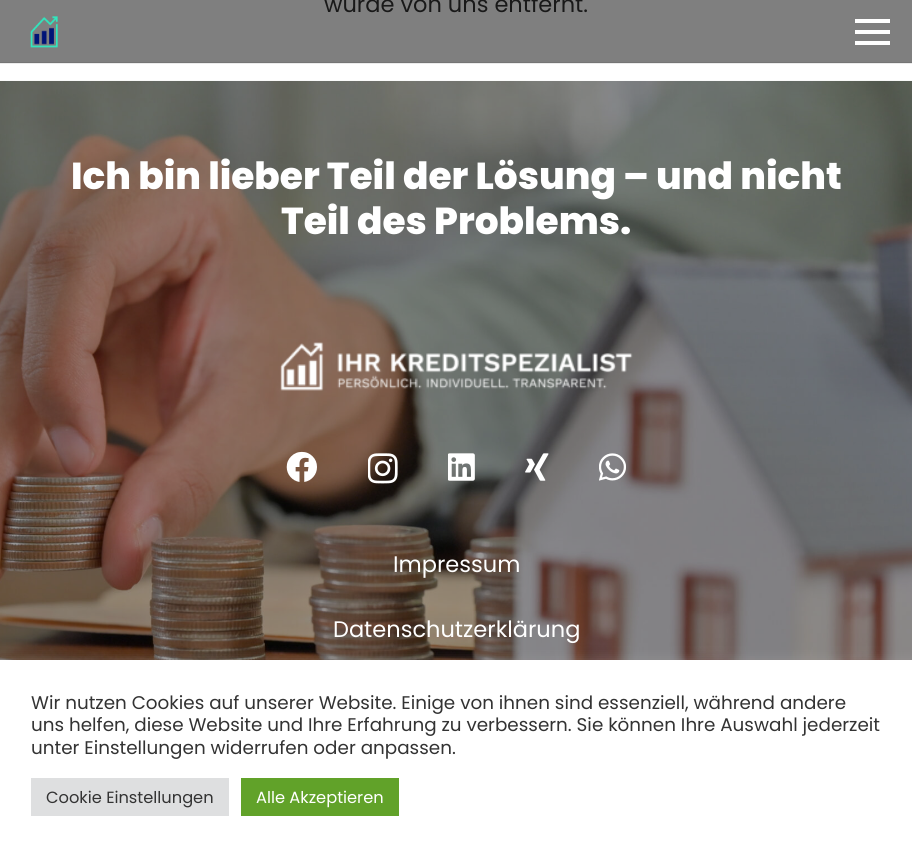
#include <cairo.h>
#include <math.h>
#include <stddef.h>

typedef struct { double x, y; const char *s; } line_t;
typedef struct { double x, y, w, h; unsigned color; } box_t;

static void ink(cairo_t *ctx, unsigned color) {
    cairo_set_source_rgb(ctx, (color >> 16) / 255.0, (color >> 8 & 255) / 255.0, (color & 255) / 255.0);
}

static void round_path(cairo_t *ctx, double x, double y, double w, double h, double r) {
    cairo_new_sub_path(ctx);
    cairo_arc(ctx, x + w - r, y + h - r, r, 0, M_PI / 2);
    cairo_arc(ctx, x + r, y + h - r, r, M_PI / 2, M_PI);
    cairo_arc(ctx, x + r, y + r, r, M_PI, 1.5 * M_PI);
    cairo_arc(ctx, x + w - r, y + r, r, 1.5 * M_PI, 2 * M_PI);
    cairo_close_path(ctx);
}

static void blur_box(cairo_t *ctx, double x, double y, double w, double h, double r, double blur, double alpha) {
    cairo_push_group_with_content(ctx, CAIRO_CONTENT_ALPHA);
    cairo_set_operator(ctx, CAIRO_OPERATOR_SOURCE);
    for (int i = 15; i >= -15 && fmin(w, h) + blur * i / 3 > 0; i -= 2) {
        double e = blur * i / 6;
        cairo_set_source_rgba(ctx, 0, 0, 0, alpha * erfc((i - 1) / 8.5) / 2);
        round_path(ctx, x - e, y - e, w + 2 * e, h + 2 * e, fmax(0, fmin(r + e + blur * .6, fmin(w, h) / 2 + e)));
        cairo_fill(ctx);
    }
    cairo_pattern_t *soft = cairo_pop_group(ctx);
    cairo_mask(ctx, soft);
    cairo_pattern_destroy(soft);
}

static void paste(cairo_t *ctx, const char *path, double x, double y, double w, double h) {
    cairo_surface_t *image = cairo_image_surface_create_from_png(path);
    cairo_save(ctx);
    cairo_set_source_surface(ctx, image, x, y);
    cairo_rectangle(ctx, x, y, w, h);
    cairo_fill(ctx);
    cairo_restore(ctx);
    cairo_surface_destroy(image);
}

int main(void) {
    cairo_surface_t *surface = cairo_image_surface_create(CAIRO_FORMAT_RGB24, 912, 853);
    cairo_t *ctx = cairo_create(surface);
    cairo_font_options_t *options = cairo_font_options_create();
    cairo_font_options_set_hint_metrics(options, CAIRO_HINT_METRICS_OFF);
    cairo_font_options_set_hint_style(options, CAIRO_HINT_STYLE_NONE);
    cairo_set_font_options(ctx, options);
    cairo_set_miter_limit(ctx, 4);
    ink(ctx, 0xFFFFFF);
    cairo_paint(ctx);
    ink(ctx, 0xEBEBEB);
    cairo_new_path(ctx);
    cairo_move_to(ctx, 0, 62);
    cairo_line_to(ctx, 0, 64);
    cairo_line_to(ctx, 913, 64);
    cairo_line_to(ctx, 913, 1);
    cairo_line_to(ctx, 912, 1);
    cairo_line_to(ctx, 912, 62);
    cairo_close_path(ctx);
    cairo_fill(ctx);
    cairo_select_font_face(ctx, "Poppins", CAIRO_FONT_SLANT_NORMAL, CAIRO_FONT_WEIGHT_NORMAL);
    cairo_set_font_size(ctx, 22.5);
    ink(ctx, 0x333333);
    cairo_move_to(ctx, 324, 12);
    cairo_show_text(ctx, "wurde von uns entfernt.");
    cairo_set_source_rgba(ctx, 0, 0, 0, 0.5);
    cairo_rectangle(ctx, 0, 0, 912, 63);
    cairo_fill(ctx);
    paste(ctx, "media/1.png", 30, 16, 28, 32);
    {
        static const box_t items[] = {
            {855, 30, 35, 4, 0xFFFFFF},
            {855, 19, 35, 4, 0xFFFFFF},
            {855, 41, 35, 4, 0xFFFFFF},
        };
        for (size_t i = 0; i < sizeof items / sizeof *items; i++) {
            ink(ctx, items[i].color);
            cairo_rectangle(ctx, items[i].x, items[i].y, items[i].w, items[i].h);
            cairo_fill(ctx);
        }
    }
    paste(ctx, "media/2.png", 0, 80, 912, 580);
    cairo_select_font_face(ctx, "Poppins ExtraBold", CAIRO_FONT_SLANT_NORMAL, CAIRO_FONT_WEIGHT_NORMAL);
    cairo_set_font_size(ctx, 37.5);
    cairo_move_to(ctx, 71, 189);
    cairo_show_text(ctx, "Ich bin lieber Teil der Lösung – und nicht");
    cairo_move_to(ctx, 281, 234);
    cairo_show_text(ctx, "Teil des Problems.");
    paste(ctx, "media/3.png", 280, 342, 353, 49);
    paste(ctx, "media/4.png", 286, 451, 31, 31);
    paste(ctx, "media/5.png", 368, 453, 30, 31);
    paste(ctx, "media/6.png", 448, 453, 27, 28);
    paste(ctx, "media/7.png", 525, 453, 24, 28);
    paste(ctx, "media/8.png", 599, 453, 27, 28);
    cairo_select_font_face(ctx, "Poppins", CAIRO_FONT_SLANT_NORMAL, CAIRO_FONT_WEIGHT_NORMAL);
    cairo_set_font_size(ctx, 22.5);
    cairo_move_to(ctx, 393, 572);
    cairo_show_text(ctx, "Impressum");
    cairo_move_to(ctx, 333, 637);
    cairo_show_text(ctx, "Datenschutzerklärung");
    ink(ctx, 0xACABAB);
    blur_box(ctx, 0, 659, 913, 194, 0, 6, 0.3);
    ink(ctx, 0xFFFFFF);
    cairo_rectangle(ctx, 0, 660, 912, 193);
    cairo_fill(ctx);
    cairo_set_font_size(ctx, 18.35);
    ink(ctx, 0x333333);
    {
        static const line_t items[] = {
            {31, 709, "Wir nutzen Cookies auf unserer Website. Einige von ihnen sind essenziell, während andere"},
            {31, 731, "uns helfen, diese Website und Ihre Erfahrung zu verbessern. Sie können Ihre Auswahl jederzeit"},
            {31, 754, "unter Einstellungen widerrufen oder anpassen."},
        };
        for (size_t i = 0; i < sizeof items / sizeof *items; i++) {
            cairo_move_to(ctx, items[i].x, items[i].y);
            cairo_show_text(ctx, items[i].s);
        }
    }
    ink(ctx, 0xDEDFE0);
    cairo_rectangle(ctx, 31, 778, 198, 38);
    cairo_fill(ctx);
    cairo_set_font_size(ctx, 16.25);
    ink(ctx, 0x333333);
    cairo_move_to(ctx, 46, 803);
    cairo_show_text(ctx, "Cookie Einstellungen");
    ink(ctx, 0x61A229);
    cairo_rectangle(ctx, 241, 778, 158, 38);
    cairo_fill(ctx);
    ink(ctx, 0xFFFFFF);
    cairo_move_to(ctx, 256, 803);
    cairo_show_text(ctx, "Alle Akzeptieren");
    cairo_surface_write_to_png(surface, "image.png");
    cairo_font_options_destroy(options);
    cairo_destroy(ctx);
    cairo_surface_destroy(surface);
    return 0;
}
